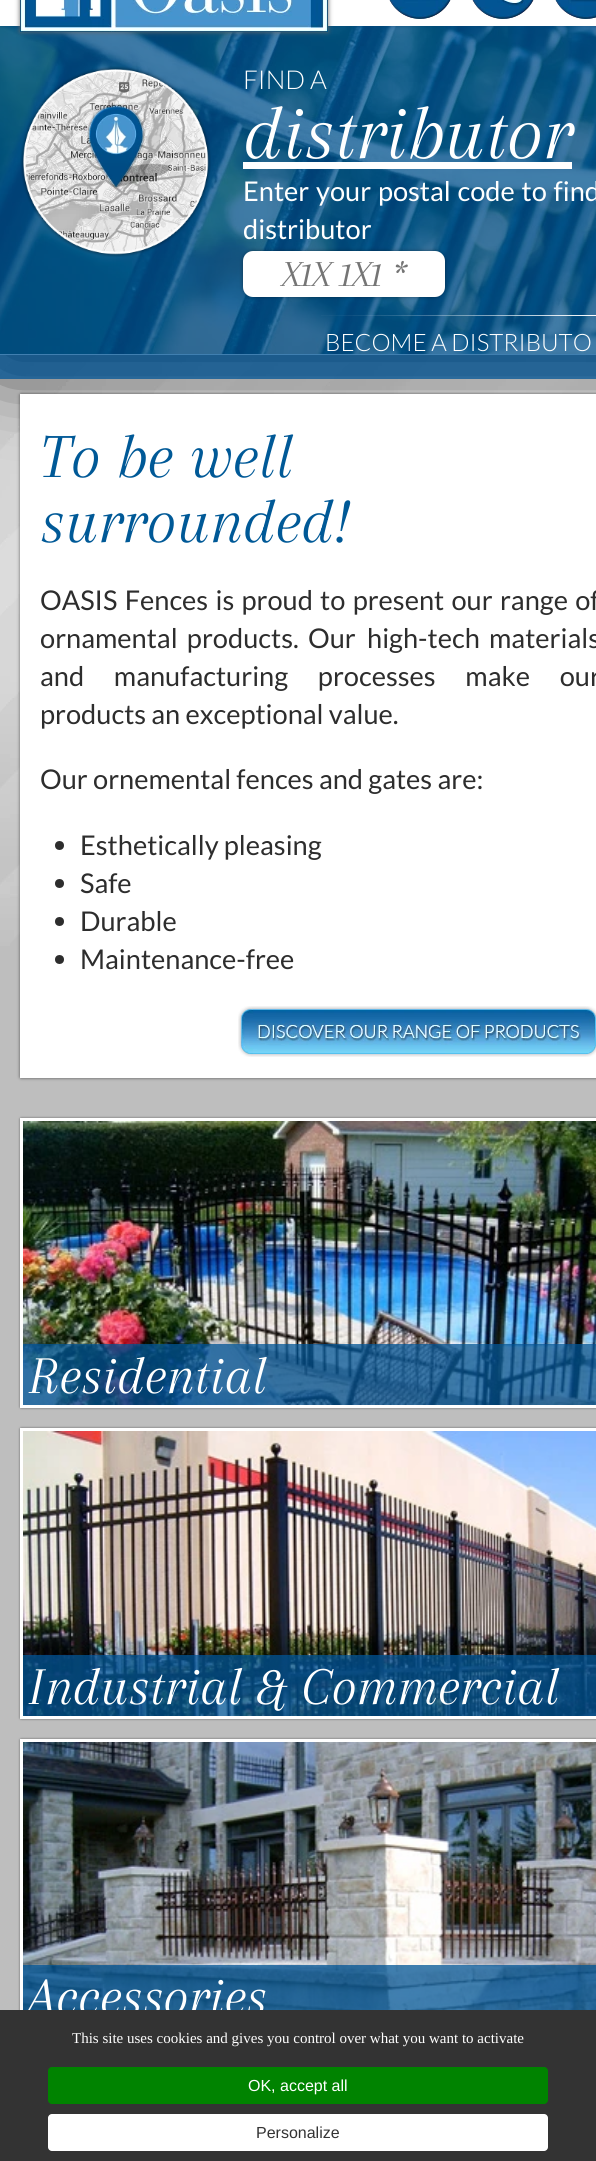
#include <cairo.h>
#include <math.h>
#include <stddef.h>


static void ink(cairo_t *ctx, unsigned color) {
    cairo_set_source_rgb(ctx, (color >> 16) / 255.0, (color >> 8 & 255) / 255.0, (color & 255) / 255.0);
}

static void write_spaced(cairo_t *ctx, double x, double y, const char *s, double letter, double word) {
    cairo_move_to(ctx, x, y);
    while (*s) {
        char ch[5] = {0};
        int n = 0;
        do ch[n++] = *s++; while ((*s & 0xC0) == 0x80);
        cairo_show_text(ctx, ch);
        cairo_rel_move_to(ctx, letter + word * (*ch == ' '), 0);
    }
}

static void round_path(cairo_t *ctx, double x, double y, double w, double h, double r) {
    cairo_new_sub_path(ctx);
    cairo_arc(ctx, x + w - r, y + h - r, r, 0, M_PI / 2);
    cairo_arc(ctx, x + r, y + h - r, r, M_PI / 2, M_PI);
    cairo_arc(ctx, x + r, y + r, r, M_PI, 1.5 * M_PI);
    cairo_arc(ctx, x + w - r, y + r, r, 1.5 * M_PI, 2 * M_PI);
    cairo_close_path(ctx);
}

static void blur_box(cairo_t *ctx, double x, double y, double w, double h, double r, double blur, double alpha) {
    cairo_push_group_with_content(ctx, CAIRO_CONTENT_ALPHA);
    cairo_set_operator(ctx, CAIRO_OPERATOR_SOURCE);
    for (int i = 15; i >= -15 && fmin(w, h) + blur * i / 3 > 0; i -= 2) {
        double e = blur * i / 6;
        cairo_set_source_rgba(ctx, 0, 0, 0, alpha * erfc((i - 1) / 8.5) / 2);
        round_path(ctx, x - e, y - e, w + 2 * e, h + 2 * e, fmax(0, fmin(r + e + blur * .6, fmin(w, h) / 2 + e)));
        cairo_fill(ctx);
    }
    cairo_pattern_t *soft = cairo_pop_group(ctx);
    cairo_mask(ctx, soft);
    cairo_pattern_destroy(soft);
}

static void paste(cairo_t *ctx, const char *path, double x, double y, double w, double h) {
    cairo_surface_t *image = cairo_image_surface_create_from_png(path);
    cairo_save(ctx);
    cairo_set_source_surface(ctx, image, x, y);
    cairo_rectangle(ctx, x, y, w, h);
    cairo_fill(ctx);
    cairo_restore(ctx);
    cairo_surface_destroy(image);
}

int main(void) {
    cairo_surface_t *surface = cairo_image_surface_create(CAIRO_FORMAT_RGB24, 596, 2161);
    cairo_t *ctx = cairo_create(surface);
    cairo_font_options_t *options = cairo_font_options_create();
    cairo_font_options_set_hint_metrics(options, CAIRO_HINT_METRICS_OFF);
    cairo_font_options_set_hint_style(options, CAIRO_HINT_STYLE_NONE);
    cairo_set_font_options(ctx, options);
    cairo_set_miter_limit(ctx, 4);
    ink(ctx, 0xBEBEBE);
    cairo_paint(ctx);
    paste(ctx, "media/1.png", 0, 355, 596, 591);
    ink(ctx, 0x000000);
    blur_box(ctx, 0, 26, 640, 329, 0, 42.5, 1);
    paste(ctx, "media/2.png", 0, 26, 596, 328);
    ink(ctx, 0xFFFFFF);
    cairo_rectangle(ctx, 0, 354, 596, 1);
    cairo_fill(ctx);
    ink(ctx, 0x000000);
    blur_box(ctx, 1, -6, 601, 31, 0, 2, 1);
    ink(ctx, 0xFFFFFF);
    cairo_rectangle(ctx, 0, 0, 596, 26);
    cairo_fill(ctx);
    cairo_set_source_rgba(ctx, 0, 0.333, 0.588, 0.75);
    cairo_rectangle(ctx, 0, 26, 596, 353);
    cairo_fill(ctx);
    ink(ctx, 0x666666);
    blur_box(ctx, 20, -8, 308, 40, 0, 2.5, 1);
    paste(ctx, "media/3.png", 20, 0, 308, 32);
    paste(ctx, "media/4.png", 389, 0, 62, 19);
    paste(ctx, "media/5.png", 472, 0, 62, 19);
    paste(ctx, "media/6.png", 555, 0, 41, 19);
    paste(ctx, "media/7.png", 20, 66, 191, 191);
    cairo_select_font_face(ctx, "Lato Light", CAIRO_FONT_SLANT_NORMAL, CAIRO_FONT_WEIGHT_NORMAL);
    cairo_set_font_size(ctx, 26);
    ink(ctx, 0xFFFFFF);
    cairo_move_to(ctx, 243, 89);
    cairo_show_text(ctx, "FIND A");
    cairo_select_font_face(ctx, "Arapey", CAIRO_FONT_SLANT_ITALIC, CAIRO_FONT_WEIGHT_NORMAL);
    cairo_set_font_size(ctx, 79);
    cairo_move_to(ctx, 243, 158);
    cairo_show_text(ctx, "distributor");
    cairo_rectangle(ctx, 243, 162, 329, 7);
    cairo_fill(ctx);
    cairo_select_font_face(ctx, "Lato", CAIRO_FONT_SLANT_NORMAL, CAIRO_FONT_WEIGHT_NORMAL);
    cairo_set_font_size(ctx, 27.2);
    write_spaced(ctx, 243, 201, "Enter your postal code to find", 0, 1.5);
    cairo_move_to(ctx, 243, 239);
    cairo_show_text(ctx, "distributor");
    ink(ctx, 0x000000);
    blur_box(ctx, 245, 253, 198, 42, 8, 2.5, 1);
    ink(ctx, 0xFFFFFF);
    round_path(ctx, 243, 251, 202, 46, 10);
    cairo_fill(ctx);
    cairo_select_font_face(ctx, "Arapey", CAIRO_FONT_SLANT_ITALIC, CAIRO_FONT_WEIGHT_NORMAL);
    cairo_set_font_size(ctx, 38);
    ink(ctx, 0x757575);
    cairo_move_to(ctx, 282, 286);
    cairo_show_text(ctx, "X1X 1X1 *");
    paste(ctx, "media/8.png", 321, 315, 275, 1);
    cairo_select_font_face(ctx, "Lato Light", CAIRO_FONT_SLANT_NORMAL, CAIRO_FONT_WEIGHT_NORMAL);
    cairo_set_font_size(ctx, 24);
    ink(ctx, 0xFFFFFF);
    cairo_move_to(ctx, 325, 351);
    cairo_show_text(ctx, "BECOME A DISTRIBUTO");
    ink(ctx, 0x000000);
    blur_box(ctx, 21, 395, 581, 682, 0, 2, 1);
    ink(ctx, 0xFFFFFF);
    cairo_rectangle(ctx, 20, 394, 576, 684);
    cairo_fill(ctx);
    cairo_select_font_face(ctx, "Arapey", CAIRO_FONT_SLANT_ITALIC, CAIRO_FONT_WEIGHT_NORMAL);
    cairo_set_font_size(ctx, 65);
    ink(ctx, 0x005997);
    cairo_move_to(ctx, 40, 477);
    cairo_show_text(ctx, "To be well");
    cairo_move_to(ctx, 40, 542);
    cairo_show_text(ctx, "surrounded!");
    cairo_select_font_face(ctx, "Lato", CAIRO_FONT_SLANT_NORMAL, CAIRO_FONT_WEIGHT_NORMAL);
    cairo_set_font_size(ctx, 27.2);
    ink(ctx, 0x2D2D2D);
    write_spaced(ctx, 40, 610, "OASIS Fences is proud to present our range of", 0, 2);
    write_spaced(ctx, 40, 648, "ornamental products. Our", 0, 4);
    write_spaced(ctx, 367, 648, "high-tech materials", 0, 4);
    write_spaced(ctx, 40, 686, "and manufacturing processes make our", 0, 24.5);
    cairo_move_to(ctx, 40, 724);
    cairo_show_text(ctx, "products an exceptional value.");
    cairo_move_to(ctx, 40, 789);
    cairo_show_text(ctx, "Our ornemental fences and gates are:");
    cairo_new_path(ctx);
    cairo_arc(ctx, 59.5, 845.5, 4.5, 0, 2 * M_PI);
    cairo_fill(ctx);
    cairo_move_to(ctx, 80, 855);
    cairo_show_text(ctx, "Esthetically pleasing");
    cairo_new_path(ctx);
    cairo_arc(ctx, 59.5, 883.5, 4.5, 0, 2 * M_PI);
    cairo_fill(ctx);
    cairo_move_to(ctx, 80, 893);
    cairo_show_text(ctx, "Safe");
    cairo_new_path(ctx);
    cairo_arc(ctx, 59.5, 921.5, 4.5, 0, 2 * M_PI);
    cairo_fill(ctx);
    cairo_move_to(ctx, 80, 931);
    cairo_show_text(ctx, "Durable");
    cairo_new_path(ctx);
    cairo_arc(ctx, 59.5, 959.5, 4.5, 0, 2 * M_PI);
    cairo_fill(ctx);
    cairo_move_to(ctx, 80, 969);
    cairo_show_text(ctx, "Maintenance-free");
    paste(ctx, "media/9.png", 238, 1006, 358, 51);
    ink(ctx, 0x000000);
    blur_box(ctx, 21, 1119, 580, 288, 0, 1.5, 1);
    cairo_rectangle(ctx, 21.5, 1119.5, 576, 287);
    ink(ctx, 0xFFFFFF);
    cairo_set_line_width(ctx, 3);
    cairo_stroke(ctx);
    paste(ctx, "media/10.png", 23, 1121, 573, 284);
    cairo_set_source_rgba(ctx, 0, 0.333, 0.588, 0.75);
    cairo_rectangle(ctx, 23, 1344, 573, 61);
    cairo_fill(ctx);
    cairo_select_font_face(ctx, "Arapey", CAIRO_FONT_SLANT_ITALIC, CAIRO_FONT_WEIGHT_NORMAL);
    cairo_set_font_size(ctx, 55);
    ink(ctx, 0xFFFFFF);
    cairo_move_to(ctx, 28, 1393);
    cairo_show_text(ctx, "Residential");
    ink(ctx, 0x000000);
    blur_box(ctx, 21, 1429, 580, 289, 0, 1.5, 1);
    cairo_rectangle(ctx, 21.5, 1429.5, 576, 288);
    ink(ctx, 0xFFFFFF);
    cairo_stroke(ctx);
    paste(ctx, "media/11.png", 23, 1431, 573, 285);
    cairo_set_source_rgba(ctx, 0, 0.333, 0.588, 0.75);
    cairo_rectangle(ctx, 23, 1655, 573, 61);
    cairo_fill(ctx);
    ink(ctx, 0xFFFFFF);
    cairo_move_to(ctx, 28, 1704);
    cairo_show_text(ctx, "Industrial & Commercial");
    ink(ctx, 0x000000);
    blur_box(ctx, 21, 1740, 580, 288, 0, 1.5, 1);
    cairo_rectangle(ctx, 21.5, 1740.5, 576, 287);
    ink(ctx, 0xFFFFFF);
    cairo_stroke(ctx);
    paste(ctx, "media/12.png", 23, 1742, 573, 268);
    cairo_set_source_rgba(ctx, 0, 0.333, 0.588, 0.75);
    cairo_rectangle(ctx, 23, 1965, 573, 45);
    cairo_fill(ctx);
    ink(ctx, 0xFFFFFF);
    cairo_move_to(ctx, 28, 2014);
    cairo_show_text(ctx, "Accessories");
    ink(ctx, 0x333333);
    cairo_rectangle(ctx, 0, 2010, 596, 151);
    cairo_fill(ctx);
    cairo_select_font_face(ctx, "Liberation Serif", CAIRO_FONT_SLANT_NORMAL, CAIRO_FONT_WEIGHT_NORMAL);
    cairo_set_font_size(ctx, 15);
    ink(ctx, 0xFFFFFF);
    cairo_move_to(ctx, 72, 2043);
    cairo_show_text(ctx, "This site uses cookies and gives you control over what you want to activate");
    ink(ctx, 0x008300);
    round_path(ctx, 48, 2067, 500, 37, 4);
    cairo_fill(ctx);
    cairo_select_font_face(ctx, "Liberation Sans", CAIRO_FONT_SLANT_NORMAL, CAIRO_FONT_WEIGHT_NORMAL);
    cairo_set_font_size(ctx, 16);
    ink(ctx, 0xFFFFFF);
    cairo_move_to(ctx, 248, 2091);
    cairo_show_text(ctx, "OK, accept all");
    round_path(ctx, 48, 2114, 500, 37, 4);
    cairo_fill(ctx);
    ink(ctx, 0x333333);
    cairo_move_to(ctx, 256, 2138);
    cairo_show_text(ctx, "Personalize");
    cairo_surface_write_to_png(surface, "image.png");
    cairo_font_options_destroy(options);
    cairo_destroy(ctx);
    cairo_surface_destroy(surface);
    return 0;
}
